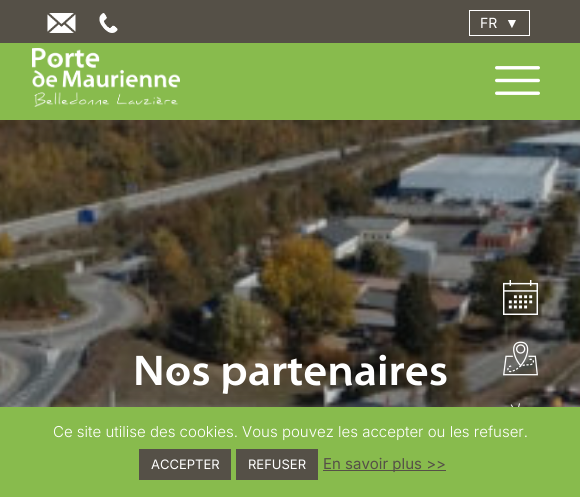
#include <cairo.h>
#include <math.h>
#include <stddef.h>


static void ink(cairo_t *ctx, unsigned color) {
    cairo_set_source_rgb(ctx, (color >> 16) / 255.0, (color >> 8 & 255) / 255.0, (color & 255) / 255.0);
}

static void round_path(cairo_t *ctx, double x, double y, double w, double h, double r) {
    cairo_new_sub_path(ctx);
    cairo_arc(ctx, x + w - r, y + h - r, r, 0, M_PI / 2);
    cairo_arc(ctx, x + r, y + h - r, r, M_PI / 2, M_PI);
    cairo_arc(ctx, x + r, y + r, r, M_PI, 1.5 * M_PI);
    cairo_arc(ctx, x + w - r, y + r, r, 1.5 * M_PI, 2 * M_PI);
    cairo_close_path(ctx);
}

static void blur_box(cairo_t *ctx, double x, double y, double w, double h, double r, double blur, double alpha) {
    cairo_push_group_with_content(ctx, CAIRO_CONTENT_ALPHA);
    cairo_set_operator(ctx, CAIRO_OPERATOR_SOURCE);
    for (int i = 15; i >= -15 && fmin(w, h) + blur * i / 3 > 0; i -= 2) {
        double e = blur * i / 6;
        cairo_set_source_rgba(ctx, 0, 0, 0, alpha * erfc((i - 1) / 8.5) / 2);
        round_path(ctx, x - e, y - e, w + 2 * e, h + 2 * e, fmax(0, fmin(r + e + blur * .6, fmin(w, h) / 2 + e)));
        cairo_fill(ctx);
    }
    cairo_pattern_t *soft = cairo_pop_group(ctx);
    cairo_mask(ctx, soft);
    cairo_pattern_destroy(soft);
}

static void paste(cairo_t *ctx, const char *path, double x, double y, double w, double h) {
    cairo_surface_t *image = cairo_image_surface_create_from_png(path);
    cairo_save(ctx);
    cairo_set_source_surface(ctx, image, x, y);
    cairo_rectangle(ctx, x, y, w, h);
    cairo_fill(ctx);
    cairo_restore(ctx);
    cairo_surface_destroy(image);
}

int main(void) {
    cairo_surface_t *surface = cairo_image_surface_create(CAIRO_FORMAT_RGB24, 580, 497);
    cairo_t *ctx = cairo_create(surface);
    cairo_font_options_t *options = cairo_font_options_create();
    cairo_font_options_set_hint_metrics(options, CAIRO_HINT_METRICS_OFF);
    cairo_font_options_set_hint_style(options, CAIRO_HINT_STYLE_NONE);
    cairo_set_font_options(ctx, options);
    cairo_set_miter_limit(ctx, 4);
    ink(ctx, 0xFFFFFF);
    cairo_paint(ctx);
    ink(ctx, 0x555047);
    cairo_rectangle(ctx, 0, 0, 580, 43);
    cairo_fill(ctx);
    paste(ctx, "media/1.png", 47, 13, 29, 20);
    paste(ctx, "media/2.png", 99, 13, 19, 20);
    cairo_rectangle(ctx, 469.5, 10.5, 60, 25);
    ink(ctx, 0xFFFFFF);
    cairo_set_line_width(ctx, 1);
    cairo_stroke(ctx);
    cairo_select_font_face(ctx, "Inter", CAIRO_FONT_SLANT_NORMAL, CAIRO_FONT_WEIGHT_NORMAL);
    cairo_set_font_size(ctx, 14);
    cairo_move_to(ctx, 480, 28);
    cairo_show_text(ctx, "FR");
    cairo_select_font_face(ctx, "Liberation Sans", CAIRO_FONT_SLANT_NORMAL, CAIRO_FONT_WEIGHT_NORMAL);
    cairo_move_to(ctx, 505, 28);
    cairo_show_text(ctx, "▼");
    ink(ctx, 0x88BB4D);
    cairo_rectangle(ctx, 0, 43, 580, 77);
    cairo_fill(ctx);
    paste(ctx, "media/3.png", 32, 48, 148, 59);
    paste(ctx, "media/4.png", 495, 66, 45, 29);
    paste(ctx, "media/5.png", 0, 120, 580, 287);
    cairo_select_font_face(ctx, "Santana", CAIRO_FONT_SLANT_NORMAL, CAIRO_FONT_WEIGHT_BOLD);
    cairo_set_font_size(ctx, 43.25);
    ink(ctx, 0xFFFFFF);
    cairo_move_to(ctx, 133, 385);
    cairo_show_text(ctx, "Nos partenaires");
    paste(ctx, "media/6.png", 503, 280, 35, 35);
    paste(ctx, "media/7.png", 503, 341, 35, 35);
    paste(ctx, "media/8.png", 510, 403, 10, 4);
    ink(ctx, 0xACABAB);
    blur_box(ctx, 0, 406, 580, 90, 0, 5, 0.3);
    ink(ctx, 0x88BB4D);
    cairo_rectangle(ctx, 0, 407, 580, 90);
    cairo_fill(ctx);
    cairo_select_font_face(ctx, "Inter Light", CAIRO_FONT_SLANT_NORMAL, CAIRO_FONT_WEIGHT_NORMAL);
    cairo_set_font_size(ctx, 15);
    ink(ctx, 0xFFFFFF);
    cairo_move_to(ctx, 53, 437);
    cairo_show_text(ctx, "Ce site utilise des cookies. Vous pouvez les accepter ou les refuser.");
    ink(ctx, 0x555047);
    cairo_rectangle(ctx, 139, 449, 92, 31);
    cairo_fill(ctx);
    cairo_select_font_face(ctx, "Inter", CAIRO_FONT_SLANT_NORMAL, CAIRO_FONT_WEIGHT_NORMAL);
    cairo_set_font_size(ctx, 13);
    ink(ctx, 0xFFFFFF);
    cairo_move_to(ctx, 151, 469);
    cairo_show_text(ctx, "ACCEPTER");
    ink(ctx, 0x555047);
    cairo_rectangle(ctx, 236, 449, 82, 31);
    cairo_fill(ctx);
    ink(ctx, 0xFFFFFF);
    cairo_move_to(ctx, 248, 469);
    cairo_show_text(ctx, "REFUSER");
    ink(ctx, 0x555047);
    cairo_rectangle(ctx, 323, 470, 123, 1);
    cairo_fill(ctx);
    cairo_set_font_size(ctx, 15);
    cairo_move_to(ctx, 323, 469);
    cairo_show_text(ctx, "En savoir plus >>");
    cairo_surface_write_to_png(surface, "image.png");
    cairo_font_options_destroy(options);
    cairo_destroy(ctx);
    cairo_surface_destroy(surface);
    return 0;
}
